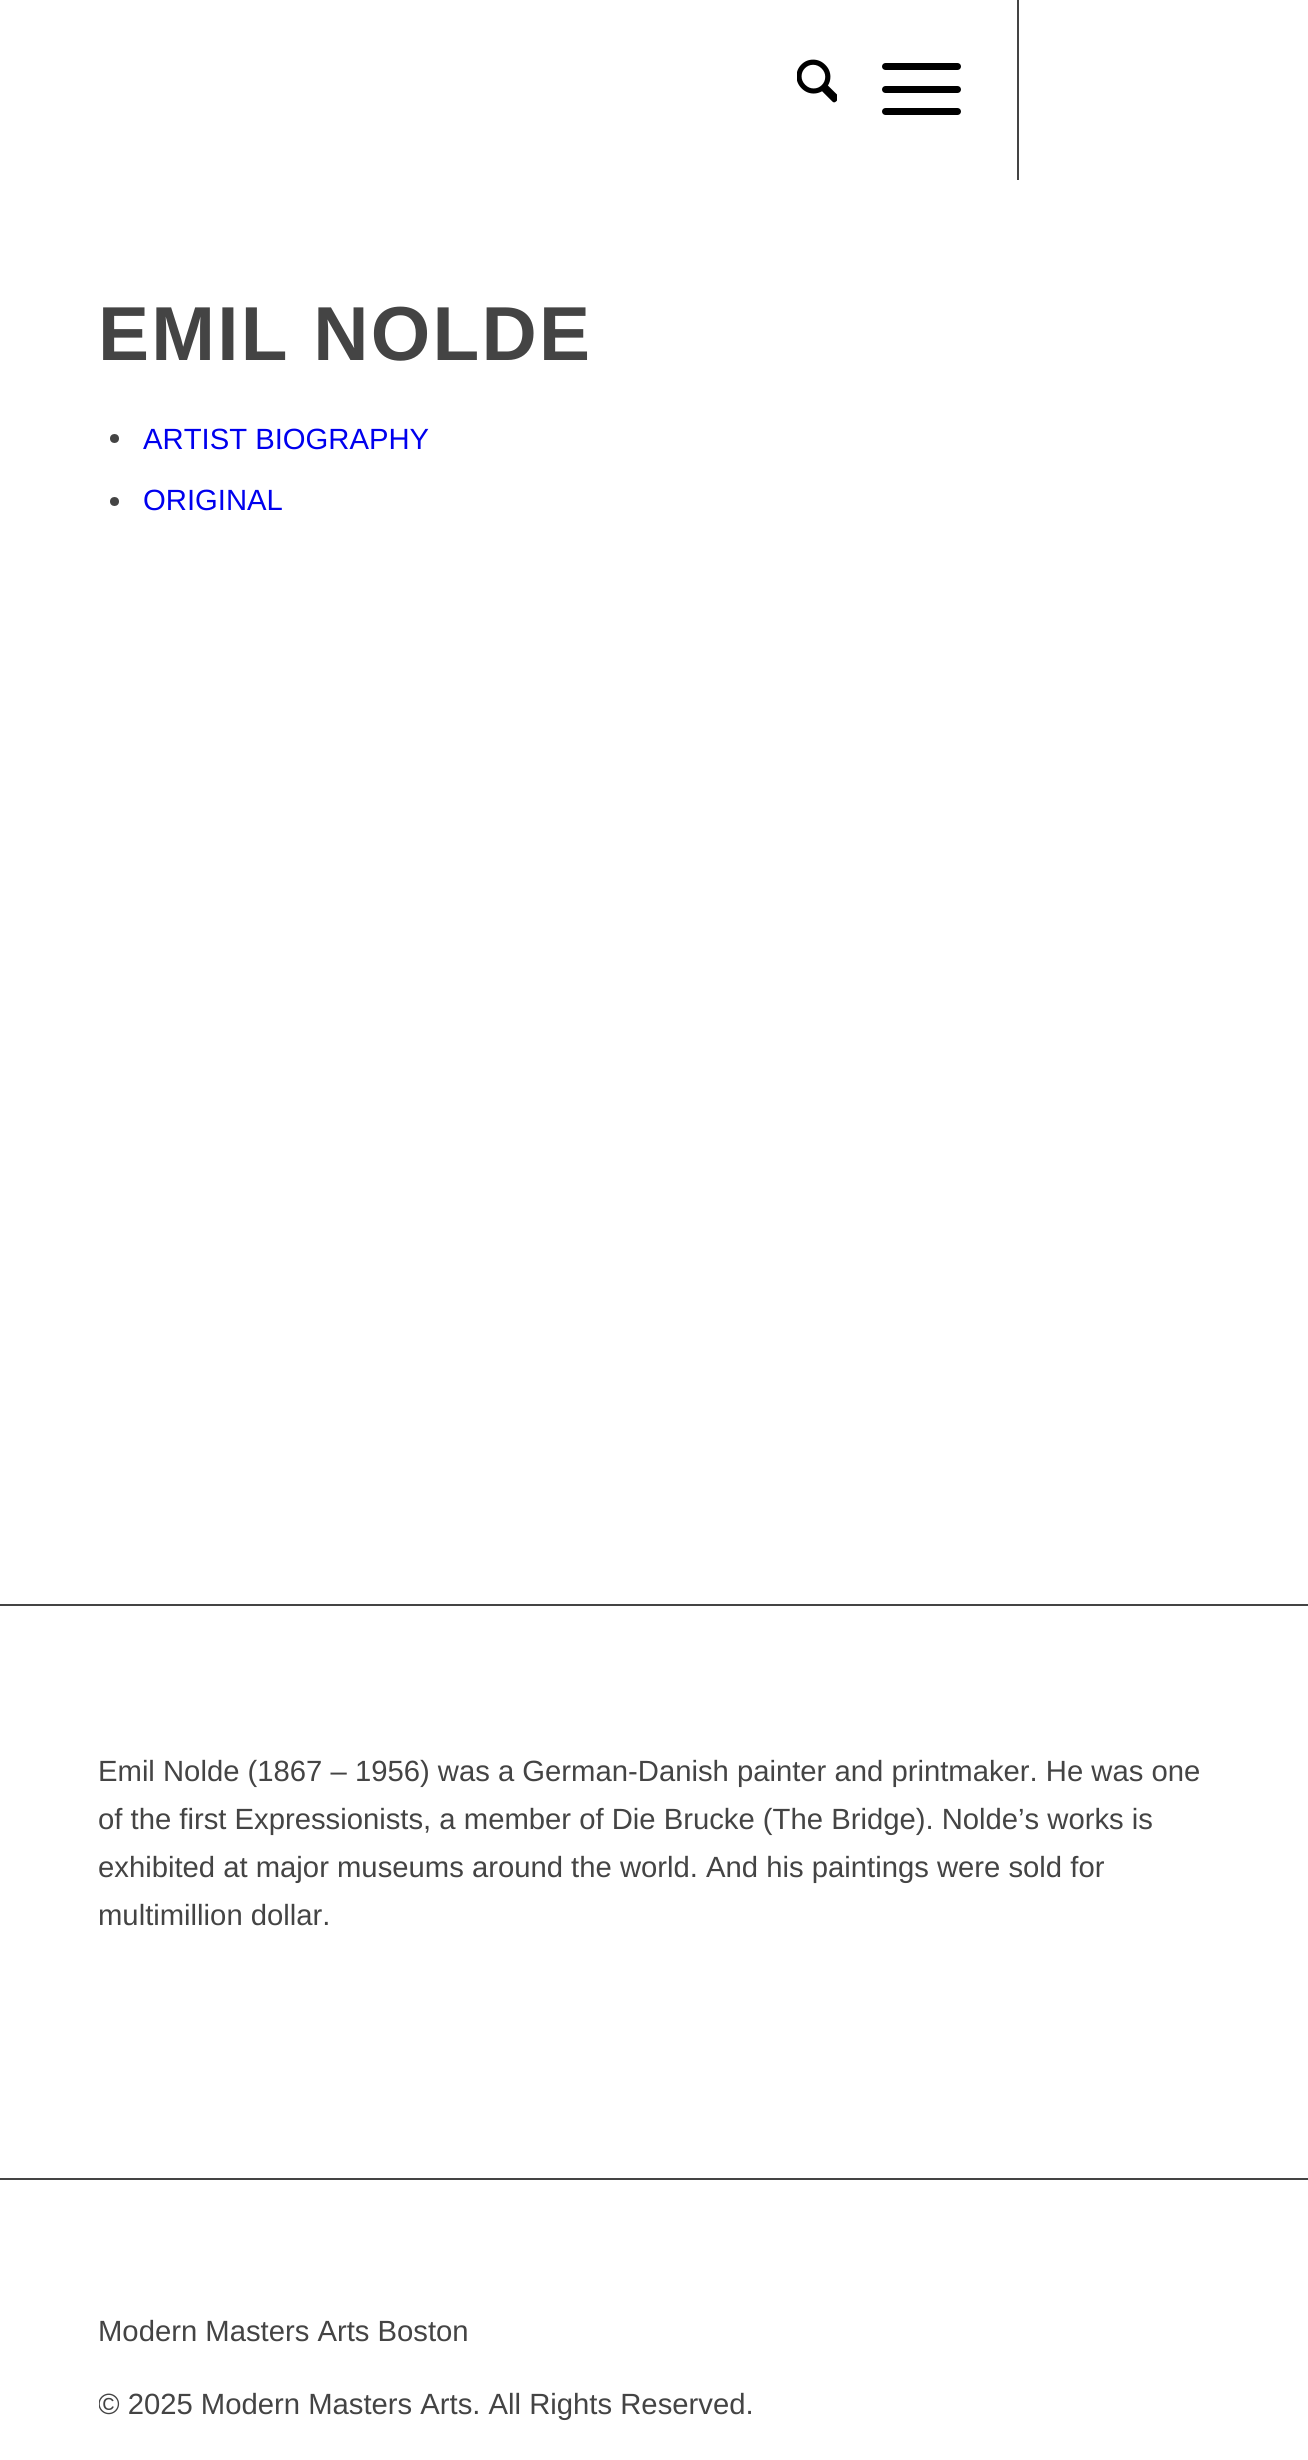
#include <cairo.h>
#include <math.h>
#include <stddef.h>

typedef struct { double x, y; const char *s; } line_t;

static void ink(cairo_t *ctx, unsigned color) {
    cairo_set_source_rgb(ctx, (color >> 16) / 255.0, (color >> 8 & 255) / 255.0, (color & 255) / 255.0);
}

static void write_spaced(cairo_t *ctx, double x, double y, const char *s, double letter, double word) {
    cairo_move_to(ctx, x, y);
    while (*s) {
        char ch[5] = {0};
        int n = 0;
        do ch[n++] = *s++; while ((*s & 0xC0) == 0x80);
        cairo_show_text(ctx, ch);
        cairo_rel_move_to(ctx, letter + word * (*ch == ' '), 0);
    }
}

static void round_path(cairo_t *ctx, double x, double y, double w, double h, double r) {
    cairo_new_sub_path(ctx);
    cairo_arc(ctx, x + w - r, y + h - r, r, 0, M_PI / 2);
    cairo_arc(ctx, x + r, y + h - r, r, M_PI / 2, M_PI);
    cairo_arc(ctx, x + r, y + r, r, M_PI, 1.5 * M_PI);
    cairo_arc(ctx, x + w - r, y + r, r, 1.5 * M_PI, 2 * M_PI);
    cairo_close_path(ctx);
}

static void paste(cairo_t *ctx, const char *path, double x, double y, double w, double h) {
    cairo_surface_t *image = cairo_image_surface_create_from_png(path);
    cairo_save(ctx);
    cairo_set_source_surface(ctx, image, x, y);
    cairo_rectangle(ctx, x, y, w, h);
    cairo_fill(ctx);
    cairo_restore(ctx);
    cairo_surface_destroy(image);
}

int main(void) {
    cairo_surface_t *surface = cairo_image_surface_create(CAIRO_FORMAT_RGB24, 1308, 2460);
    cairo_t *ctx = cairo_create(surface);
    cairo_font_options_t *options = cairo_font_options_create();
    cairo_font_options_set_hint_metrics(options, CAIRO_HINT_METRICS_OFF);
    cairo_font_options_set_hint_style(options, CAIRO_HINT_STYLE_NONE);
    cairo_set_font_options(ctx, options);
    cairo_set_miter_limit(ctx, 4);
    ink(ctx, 0xFFFFFF);
    cairo_paint(ctx);
    ink(ctx, 0x444444);
    cairo_rectangle(ctx, 1017, 0, 2, 180);
    cairo_fill(ctx);
    paste(ctx, "media/1.png", 797, 59, 40, 44);
    ink(ctx, 0x000000);
    round_path(ctx, 882, 86, 79, 7, 3.5);
    cairo_fill(ctx);
    round_path(ctx, 882, 63, 79, 7, 3.5);
    cairo_fill(ctx);
    round_path(ctx, 882, 108, 79, 7, 3.5);
    cairo_fill(ctx);
    cairo_select_font_face(ctx, "Liberation Sans", CAIRO_FONT_SLANT_NORMAL, CAIRO_FONT_WEIGHT_BOLD);
    cairo_set_font_size(ctx, 76.5);
    ink(ctx, 0x444444);
    write_spaced(ctx, 98, 360, "EMIL NOLDE", 2.25, 0);
    cairo_new_path(ctx);
    cairo_arc(ctx, 114.5, 438.5, 4.5, 0, 2 * M_PI);
    cairo_fill(ctx);
    cairo_select_font_face(ctx, "Liberation Sans", CAIRO_FONT_SLANT_NORMAL, CAIRO_FONT_WEIGHT_NORMAL);
    cairo_set_font_size(ctx, 29.25);
    ink(ctx, 0x0000EE);
    cairo_move_to(ctx, 143, 449);
    cairo_show_text(ctx, "ARTIST BIOGRAPHY");
    ink(ctx, 0x444444);
    cairo_new_path(ctx);
    cairo_arc(ctx, 114.5, 501.5, 4.5, 0, 2 * M_PI);
    cairo_fill(ctx);
    ink(ctx, 0x0000EE);
    cairo_move_to(ctx, 143, 510);
    cairo_show_text(ctx, "ORIGINAL");
    ink(ctx, 0x444444);
    cairo_rectangle(ctx, 0, 1604, 1308, 2);
    cairo_fill(ctx);
    {
        static const line_t items[] = {
            {98, 1781, "Emil Nolde (1867 – 1956) was a German-Danish painter and printmaker. He was one"},
            {98, 1829, "of the first Expressionists, a member of Die Brucke (The Bridge). Nolde’s works is"},
            {98, 1877, "exhibited at major museums around the world. And his paintings were sold for"},
            {98, 1925, "multimillion dollar."},
        };
        for (size_t i = 0; i < sizeof items / sizeof *items; i++) {
            cairo_move_to(ctx, items[i].x, items[i].y);
            cairo_show_text(ctx, items[i].s);
        }
    }
    cairo_rectangle(ctx, 0, 2178, 1308, 2);
    cairo_fill(ctx);
    cairo_move_to(ctx, 98, 2341);
    cairo_show_text(ctx, "Modern Masters Arts Boston");
    cairo_save(ctx);
    cairo_rectangle(ctx, 99, 2282, 1112, 171);
    cairo_clip(ctx);
    cairo_move_to(ctx, 98, 2414);
    cairo_show_text(ctx, "© 2025 Modern Masters Arts. All Rights Reserved.");
    cairo_restore(ctx);
    cairo_surface_write_to_png(surface, "image.png");
    cairo_font_options_destroy(options);
    cairo_destroy(ctx);
    cairo_surface_destroy(surface);
    return 0;
}
